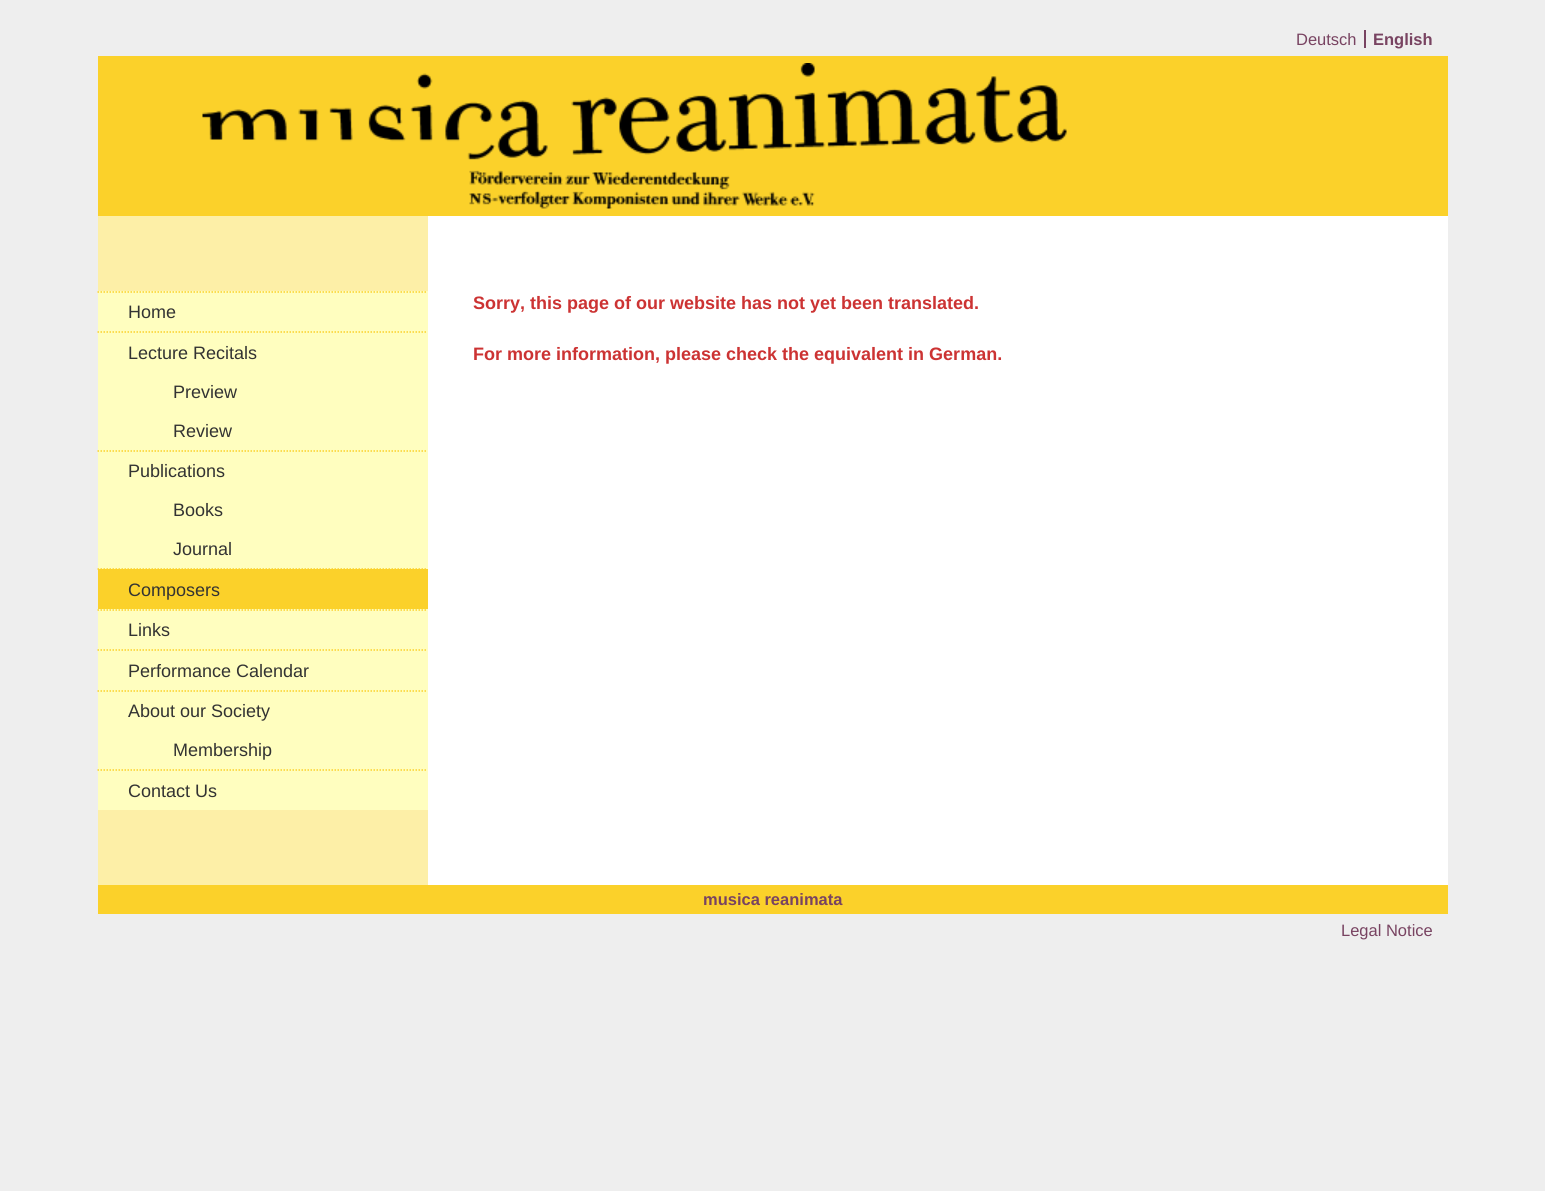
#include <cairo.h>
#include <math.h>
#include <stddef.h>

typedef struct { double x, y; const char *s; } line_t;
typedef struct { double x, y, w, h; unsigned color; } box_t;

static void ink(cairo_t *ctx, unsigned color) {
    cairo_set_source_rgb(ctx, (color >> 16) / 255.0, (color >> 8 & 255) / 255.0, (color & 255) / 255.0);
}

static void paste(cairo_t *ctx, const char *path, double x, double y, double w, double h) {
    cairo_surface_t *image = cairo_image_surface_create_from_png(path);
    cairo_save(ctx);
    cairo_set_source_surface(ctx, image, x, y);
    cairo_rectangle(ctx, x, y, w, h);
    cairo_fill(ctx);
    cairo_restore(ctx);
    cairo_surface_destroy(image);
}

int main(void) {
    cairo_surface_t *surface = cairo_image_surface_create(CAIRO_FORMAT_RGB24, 1545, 1191);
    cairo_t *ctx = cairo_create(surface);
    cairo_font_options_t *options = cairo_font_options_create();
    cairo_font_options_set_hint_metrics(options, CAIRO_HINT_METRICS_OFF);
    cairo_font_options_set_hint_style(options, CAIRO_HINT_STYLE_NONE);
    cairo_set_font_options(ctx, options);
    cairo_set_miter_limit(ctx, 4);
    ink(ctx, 0xEEEEEE);
    cairo_paint(ctx);
    cairo_select_font_face(ctx, "Liberation Sans", CAIRO_FONT_SLANT_NORMAL, CAIRO_FONT_WEIGHT_NORMAL);
    cairo_set_font_size(ctx, 16.5);
    ink(ctx, 0x784361);
    cairo_move_to(ctx, 1296, 45);
    cairo_show_text(ctx, "Deutsch");
    cairo_rectangle(ctx, 1364, 30, 2, 18);
    cairo_fill(ctx);
    cairo_select_font_face(ctx, "Liberation Sans", CAIRO_FONT_SLANT_NORMAL, CAIRO_FONT_WEIGHT_BOLD);
    cairo_move_to(ctx, 1373, 45);
    cairo_show_text(ctx, "English");
    ink(ctx, 0xFBD12A);
    cairo_rectangle(ctx, 98, 56, 1350, 160);
    cairo_fill(ctx);
    paste(ctx, "media/1.png", 202, 63, 865, 146);
    {
        static const box_t items[] = {
            {428, 216, 1020, 669, 0xFFFFFF},
            {98, 216, 330, 669, 0xFDEFA7},
            {98, 291, 330, 278, 0xFFFEBF},
        };
        for (size_t i = 0; i < sizeof items / sizeof *items; i++) {
            ink(ctx, items[i].color);
            cairo_rectangle(ctx, items[i].x, items[i].y, items[i].w, items[i].h);
            cairo_fill(ctx);
        }
    }
    cairo_new_path(ctx);
    cairo_move_to(ctx, 97.5, 292);
    cairo_line_to(ctx, 427.5, 292);
    ink(ctx, 0xFBD12A);
    cairo_set_line_width(ctx, 1.5);
    cairo_set_dash(ctx, (double[]){1.5, 1.5}, 2, 0);
    cairo_stroke(ctx);
    cairo_select_font_face(ctx, "Liberation Sans", CAIRO_FONT_SLANT_NORMAL, CAIRO_FONT_WEIGHT_NORMAL);
    cairo_set_font_size(ctx, 18);
    ink(ctx, 0x333333);
    cairo_move_to(ctx, 128, 318);
    cairo_show_text(ctx, "Home");
    cairo_new_path(ctx);
    cairo_move_to(ctx, 97.5, 332);
    cairo_line_to(ctx, 427.5, 332);
    ink(ctx, 0xFBD12A);
    cairo_stroke(ctx);
    ink(ctx, 0x333333);
    {
        static const line_t items[] = {
            {128, 359, "Lecture Recitals"},
            {173, 398, "Preview"},
            {173, 437, "Review"},
        };
        for (size_t i = 0; i < sizeof items / sizeof *items; i++) {
            cairo_move_to(ctx, items[i].x, items[i].y);
            cairo_show_text(ctx, items[i].s);
        }
    }
    cairo_new_path(ctx);
    cairo_move_to(ctx, 97.5, 451);
    cairo_line_to(ctx, 427.5, 451);
    ink(ctx, 0xFBD12A);
    cairo_stroke(ctx);
    ink(ctx, 0x333333);
    {
        static const line_t items[] = {
            {128, 477, "Publications"},
            {173, 516, "Books"},
            {173, 555, "Journal"},
        };
        for (size_t i = 0; i < sizeof items / sizeof *items; i++) {
            cairo_move_to(ctx, items[i].x, items[i].y);
            cairo_show_text(ctx, items[i].s);
        }
    }
    ink(ctx, 0xFBD12A);
    cairo_rectangle(ctx, 98, 569, 330, 40);
    cairo_fill(ctx);
    cairo_new_path(ctx);
    cairo_move_to(ctx, 97.5, 569);
    cairo_line_to(ctx, 427.5, 569);
    cairo_stroke(ctx);
    ink(ctx, 0x333333);
    cairo_move_to(ctx, 128, 596);
    cairo_show_text(ctx, "Composers");
    ink(ctx, 0xFFFEBF);
    cairo_rectangle(ctx, 98, 609, 330, 201);
    cairo_fill(ctx);
    cairo_new_path(ctx);
    cairo_move_to(ctx, 97.5, 610);
    cairo_line_to(ctx, 427.5, 610);
    ink(ctx, 0xFBD12A);
    cairo_stroke(ctx);
    ink(ctx, 0x333333);
    cairo_move_to(ctx, 128, 636);
    cairo_show_text(ctx, "Links");
    cairo_new_path(ctx);
    cairo_move_to(ctx, 97.5, 650);
    cairo_line_to(ctx, 427.5, 650);
    ink(ctx, 0xFBD12A);
    cairo_stroke(ctx);
    ink(ctx, 0x333333);
    cairo_move_to(ctx, 128, 677);
    cairo_show_text(ctx, "Performance Calendar");
    cairo_new_path(ctx);
    cairo_move_to(ctx, 97.5, 691);
    cairo_line_to(ctx, 427.5, 691);
    ink(ctx, 0xFBD12A);
    cairo_stroke(ctx);
    ink(ctx, 0x333333);
    cairo_move_to(ctx, 128, 717);
    cairo_show_text(ctx, "About our Society");
    cairo_move_to(ctx, 173, 756);
    cairo_show_text(ctx, "Membership");
    cairo_new_path(ctx);
    cairo_move_to(ctx, 97.5, 770);
    cairo_line_to(ctx, 427.5, 770);
    ink(ctx, 0xFBD12A);
    cairo_stroke(ctx);
    ink(ctx, 0x333333);
    cairo_move_to(ctx, 128, 797);
    cairo_show_text(ctx, "Contact Us");
    cairo_select_font_face(ctx, "Liberation Sans", CAIRO_FONT_SLANT_NORMAL, CAIRO_FONT_WEIGHT_BOLD);
    ink(ctx, 0xCC3333);
    cairo_move_to(ctx, 473, 309);
    cairo_show_text(ctx, "Sorry, this page of our website has not yet been translated.");
    cairo_move_to(ctx, 473, 360);
    cairo_show_text(ctx, "For more information, please check the equivalent in German.");
    ink(ctx, 0xFBD12A);
    cairo_rectangle(ctx, 98, 885, 1350, 29);
    cairo_fill(ctx);
    cairo_set_font_size(ctx, 16.5);
    ink(ctx, 0x784361);
    cairo_move_to(ctx, 703, 905);
    cairo_show_text(ctx, "musica reanimata");
    cairo_select_font_face(ctx, "Liberation Sans", CAIRO_FONT_SLANT_NORMAL, CAIRO_FONT_WEIGHT_NORMAL);
    cairo_move_to(ctx, 1341, 936);
    cairo_show_text(ctx, "Legal Notice");
    cairo_surface_write_to_png(surface, "image.png");
    cairo_font_options_destroy(options);
    cairo_destroy(ctx);
    cairo_surface_destroy(surface);
    return 0;
}
